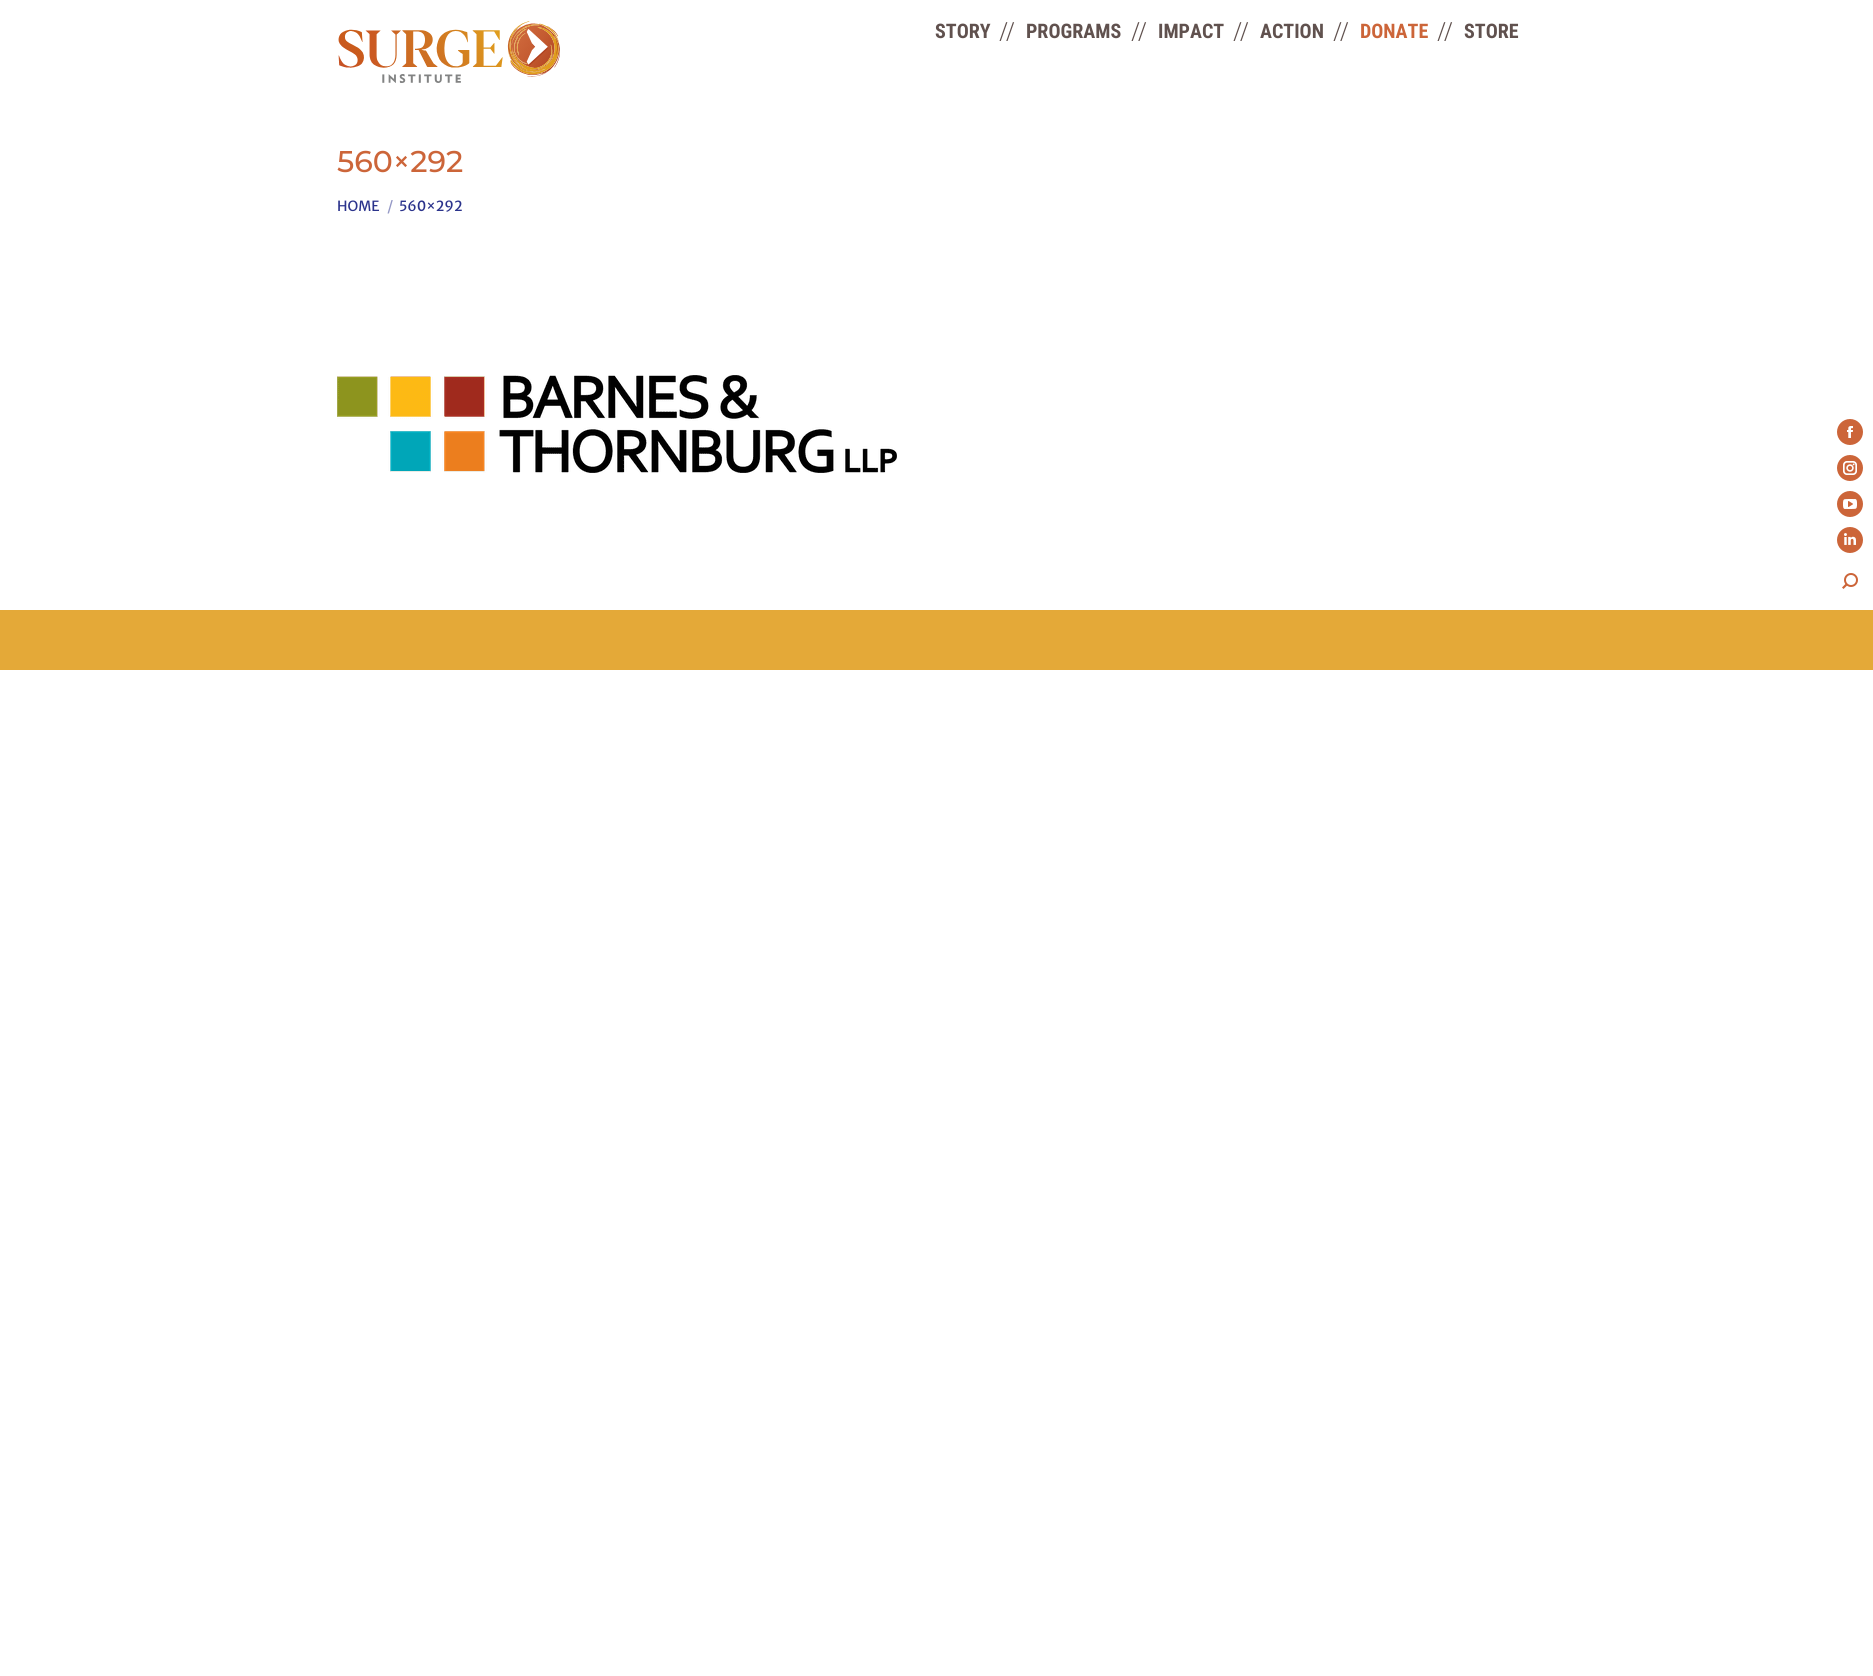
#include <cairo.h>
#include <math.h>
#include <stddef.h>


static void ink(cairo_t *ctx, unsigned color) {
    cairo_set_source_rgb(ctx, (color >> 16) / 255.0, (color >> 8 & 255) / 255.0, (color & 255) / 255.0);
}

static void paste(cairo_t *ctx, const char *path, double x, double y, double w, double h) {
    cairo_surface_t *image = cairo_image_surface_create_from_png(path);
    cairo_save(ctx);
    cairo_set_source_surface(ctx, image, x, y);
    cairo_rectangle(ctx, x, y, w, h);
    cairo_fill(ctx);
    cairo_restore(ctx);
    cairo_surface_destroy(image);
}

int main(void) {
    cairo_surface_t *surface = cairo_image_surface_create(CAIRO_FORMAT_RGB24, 1873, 1676);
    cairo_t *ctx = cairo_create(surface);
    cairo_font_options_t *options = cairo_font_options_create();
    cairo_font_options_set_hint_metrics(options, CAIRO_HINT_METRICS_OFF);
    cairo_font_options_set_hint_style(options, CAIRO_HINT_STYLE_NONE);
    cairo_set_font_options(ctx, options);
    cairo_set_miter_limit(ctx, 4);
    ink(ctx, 0xFFFFFF);
    cairo_paint(ctx);
    paste(ctx, "media/1.png", 338, 21, 222, 62);
    ink(ctx, 0xCC6539);
    cairo_arc(ctx, 1850, 432, 13, 0, 2 * M_PI);
    cairo_fill(ctx);
    paste(ctx, "media/2.png", 1847, 426, 6, 12);
    cairo_arc(ctx, 1850, 468, 13, 0, 2 * M_PI);
    cairo_fill(ctx);
    paste(ctx, "media/3.png", 1843, 461, 14, 14);
    cairo_arc(ctx, 1850, 504, 13, 0, 2 * M_PI);
    cairo_fill(ctx);
    paste(ctx, "media/4.png", 1843, 499, 14, 10);
    cairo_arc(ctx, 1850, 540, 13, 0, 2 * M_PI);
    cairo_fill(ctx);
    paste(ctx, "media/5.png", 1844, 533, 12, 12);
    paste(ctx, "media/6.png", 1842, 573, 16, 16);
    cairo_select_font_face(ctx, "Roboto Condensed", CAIRO_FONT_SLANT_NORMAL, CAIRO_FONT_WEIGHT_BOLD);
    cairo_set_font_size(ctx, 20);
    ink(ctx, 0x60514E);
    cairo_move_to(ctx, 935, 38);
    cairo_show_text(ctx, "STORY");
    cairo_select_font_face(ctx, "Montserrat", CAIRO_FONT_SLANT_NORMAL, CAIRO_FONT_WEIGHT_NORMAL);
    cairo_move_to(ctx, 1000, 39);
    cairo_show_text(ctx, "//");
    cairo_select_font_face(ctx, "Roboto Condensed", CAIRO_FONT_SLANT_NORMAL, CAIRO_FONT_WEIGHT_BOLD);
    cairo_move_to(ctx, 1026, 38);
    cairo_show_text(ctx, "PROGRAMS");
    cairo_select_font_face(ctx, "Montserrat", CAIRO_FONT_SLANT_NORMAL, CAIRO_FONT_WEIGHT_NORMAL);
    cairo_move_to(ctx, 1132, 39);
    cairo_show_text(ctx, "//");
    cairo_select_font_face(ctx, "Roboto Condensed", CAIRO_FONT_SLANT_NORMAL, CAIRO_FONT_WEIGHT_BOLD);
    cairo_move_to(ctx, 1158, 38);
    cairo_show_text(ctx, "IMPACT");
    cairo_select_font_face(ctx, "Montserrat", CAIRO_FONT_SLANT_NORMAL, CAIRO_FONT_WEIGHT_NORMAL);
    cairo_move_to(ctx, 1234, 39);
    cairo_show_text(ctx, "//");
    cairo_select_font_face(ctx, "Roboto Condensed", CAIRO_FONT_SLANT_NORMAL, CAIRO_FONT_WEIGHT_BOLD);
    cairo_move_to(ctx, 1260, 38);
    cairo_show_text(ctx, "ACTION");
    cairo_select_font_face(ctx, "Montserrat", CAIRO_FONT_SLANT_NORMAL, CAIRO_FONT_WEIGHT_NORMAL);
    cairo_move_to(ctx, 1334, 39);
    cairo_show_text(ctx, "//");
    cairo_select_font_face(ctx, "Roboto Condensed", CAIRO_FONT_SLANT_NORMAL, CAIRO_FONT_WEIGHT_BOLD);
    ink(ctx, 0xCC6539);
    cairo_move_to(ctx, 1360, 38);
    cairo_show_text(ctx, "DONATE");
    cairo_select_font_face(ctx, "Montserrat", CAIRO_FONT_SLANT_NORMAL, CAIRO_FONT_WEIGHT_NORMAL);
    ink(ctx, 0x60514E);
    cairo_move_to(ctx, 1438, 39);
    cairo_show_text(ctx, "//");
    cairo_select_font_face(ctx, "Roboto Condensed", CAIRO_FONT_SLANT_NORMAL, CAIRO_FONT_WEIGHT_BOLD);
    cairo_move_to(ctx, 1464, 38);
    cairo_show_text(ctx, "STORE");
    cairo_select_font_face(ctx, "Montserrat Medium", CAIRO_FONT_SLANT_NORMAL, CAIRO_FONT_WEIGHT_NORMAL);
    cairo_set_font_size(ctx, 30);
    ink(ctx, 0xCC6539);
    cairo_move_to(ctx, 337, 172);
    cairo_show_text(ctx, "560×292");
    cairo_select_font_face(ctx, "Merriweather Sans", CAIRO_FONT_SLANT_NORMAL, CAIRO_FONT_WEIGHT_NORMAL);
    cairo_set_font_size(ctx, 14);
    ink(ctx, 0x2B338C);
    cairo_move_to(ctx, 337, 211);
    cairo_show_text(ctx, "HOME");
    ink(ctx, 0x9599C6);
    cairo_move_to(ctx, 387, 211);
    cairo_show_text(ctx, "/");
    ink(ctx, 0x2B338C);
    cairo_move_to(ctx, 399, 211);
    cairo_show_text(ctx, "560×292");
    paste(ctx, "media/7.png", 337, 375, 560, 98);
    ink(ctx, 0xE4A938);
    cairo_rectangle(ctx, 0, 610, 1873, 60);
    cairo_fill(ctx);
    cairo_surface_write_to_png(surface, "image.png");
    cairo_font_options_destroy(options);
    cairo_destroy(ctx);
    cairo_surface_destroy(surface);
    return 0;
}
